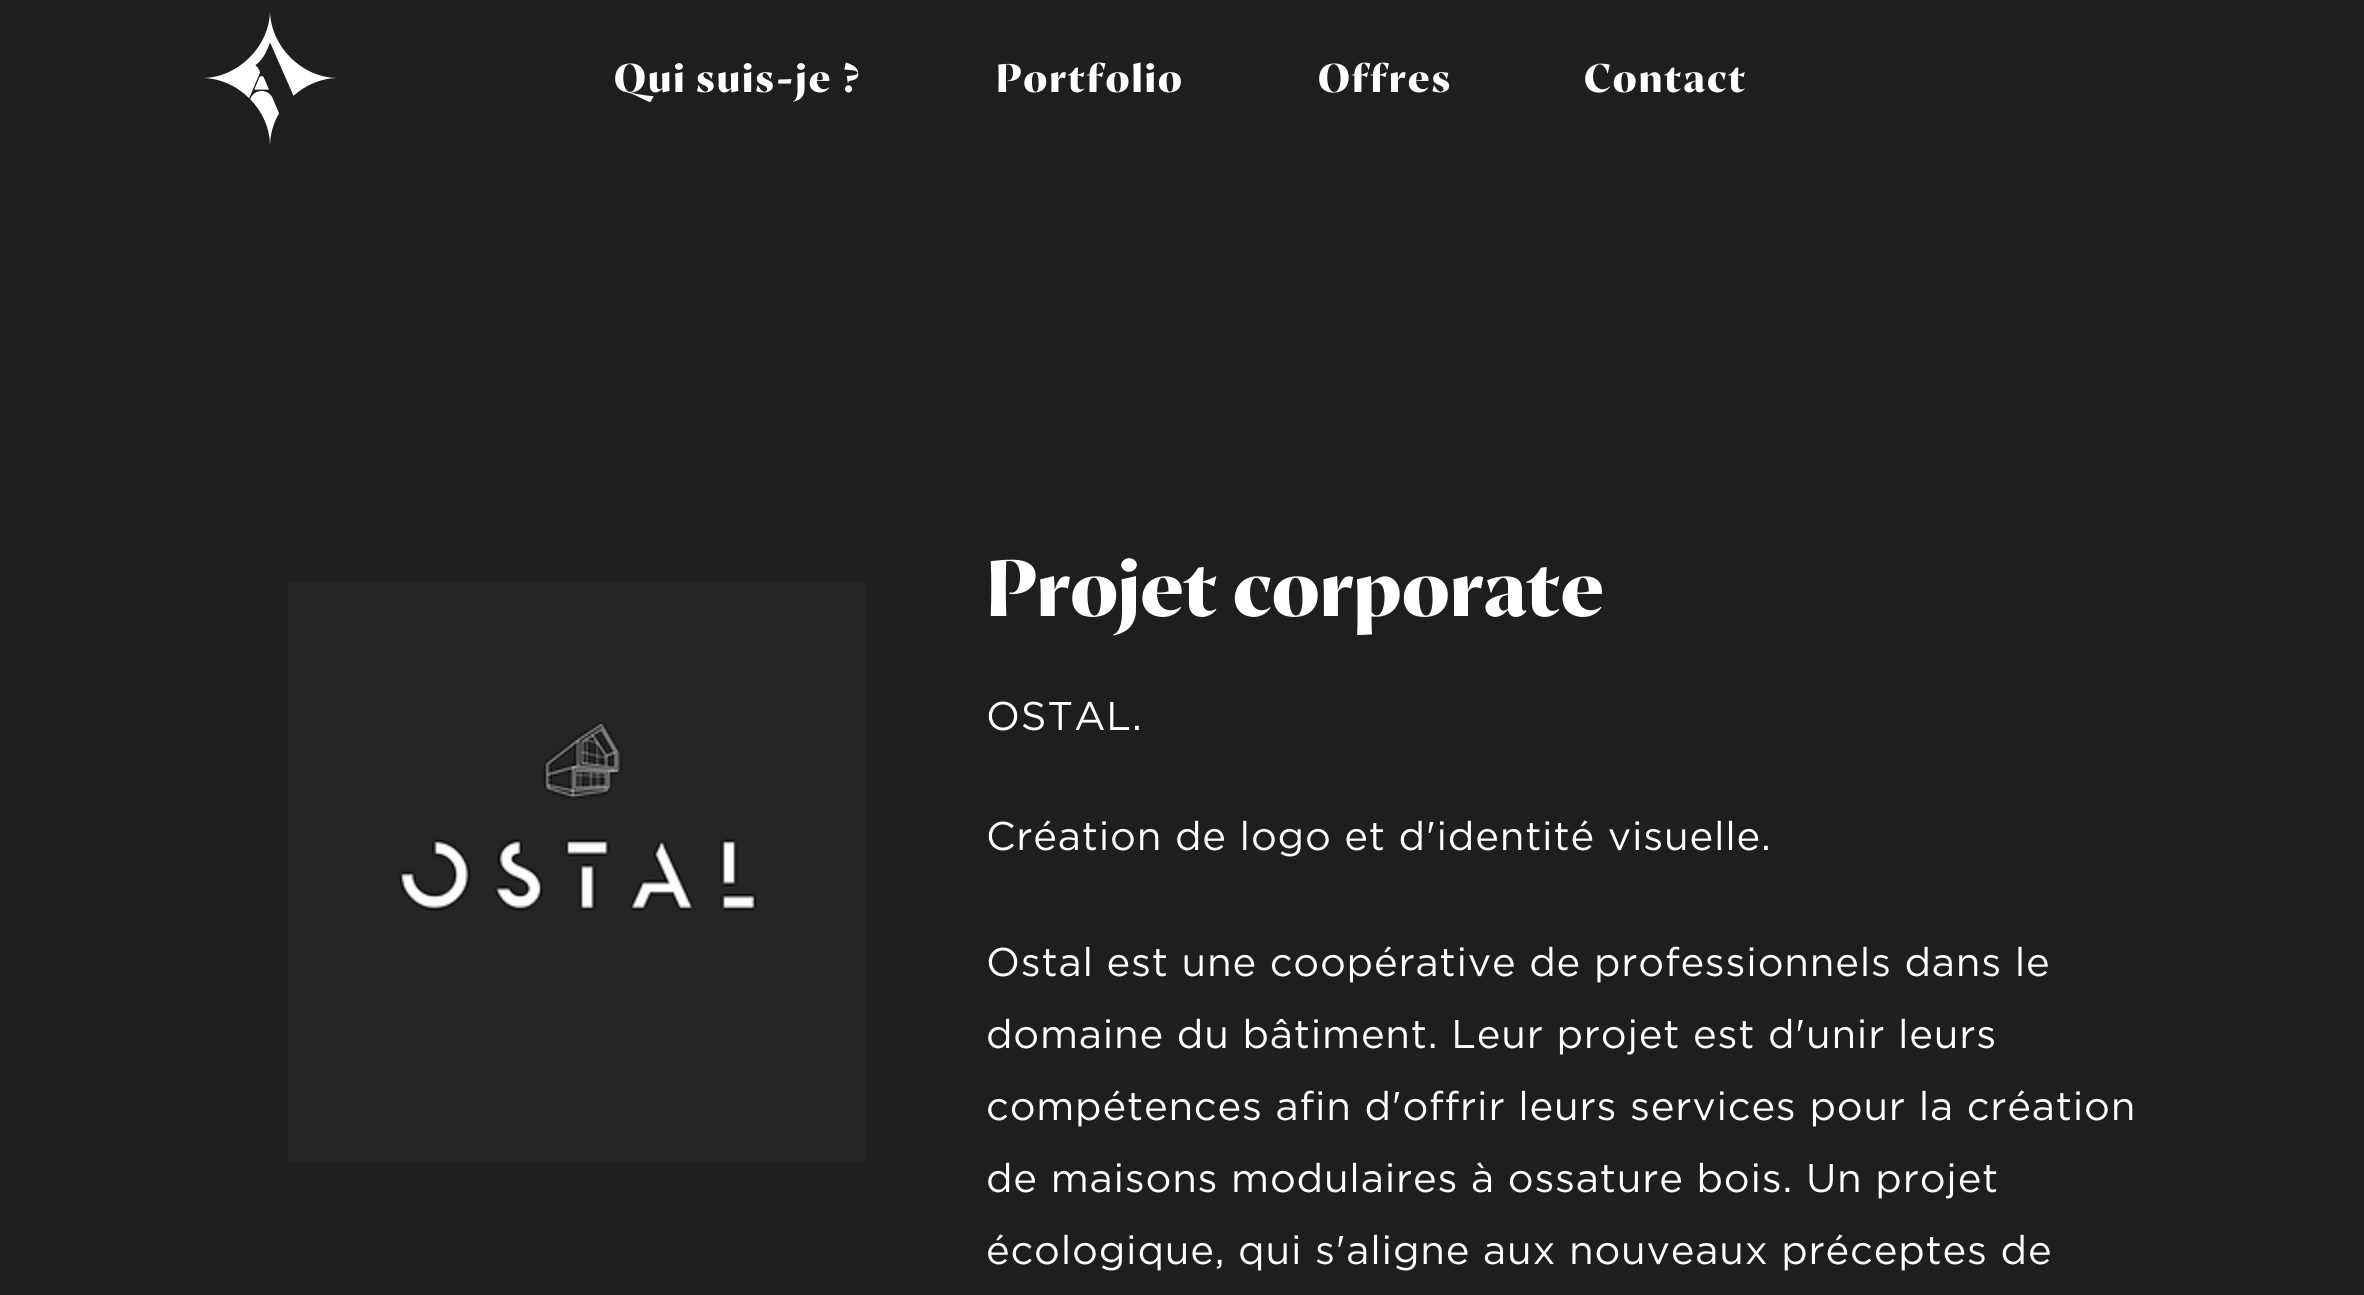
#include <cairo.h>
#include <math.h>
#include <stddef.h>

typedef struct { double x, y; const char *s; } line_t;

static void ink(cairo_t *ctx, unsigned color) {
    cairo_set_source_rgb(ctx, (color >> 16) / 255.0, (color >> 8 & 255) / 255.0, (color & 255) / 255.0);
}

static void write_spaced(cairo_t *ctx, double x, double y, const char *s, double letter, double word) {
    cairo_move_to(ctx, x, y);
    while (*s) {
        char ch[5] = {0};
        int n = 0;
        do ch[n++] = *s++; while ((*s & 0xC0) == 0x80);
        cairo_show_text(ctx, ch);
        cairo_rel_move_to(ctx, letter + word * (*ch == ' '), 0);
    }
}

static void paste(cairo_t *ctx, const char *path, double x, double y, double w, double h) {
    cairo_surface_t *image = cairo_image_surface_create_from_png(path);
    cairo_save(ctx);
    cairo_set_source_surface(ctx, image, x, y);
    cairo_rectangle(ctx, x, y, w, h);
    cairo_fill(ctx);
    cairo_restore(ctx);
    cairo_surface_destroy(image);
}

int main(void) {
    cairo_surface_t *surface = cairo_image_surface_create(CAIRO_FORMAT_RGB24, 2364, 1295);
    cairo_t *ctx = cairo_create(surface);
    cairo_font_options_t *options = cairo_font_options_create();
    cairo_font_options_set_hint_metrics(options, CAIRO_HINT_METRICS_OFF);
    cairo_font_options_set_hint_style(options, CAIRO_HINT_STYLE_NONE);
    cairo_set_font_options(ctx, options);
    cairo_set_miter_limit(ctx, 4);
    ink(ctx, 0x1E1E1E);
    cairo_paint(ctx);
    paste(ctx, "media/1.png", 202, 11, 136, 134);
    paste(ctx, "media/2.png", 615, 62, 244, 41);
    paste(ctx, "media/3.png", 998, 62, 183, 31);
    paste(ctx, "media/4.png", 1319, 62, 131, 31);
    paste(ctx, "media/5.png", 1585, 63, 160, 30);
    paste(ctx, "media/6.png", 288, 582, 578, 580);
    paste(ctx, "media/7.png", 990, 558, 612, 78);
    cairo_select_font_face(ctx, "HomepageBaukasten", CAIRO_FONT_SLANT_NORMAL, CAIRO_FONT_WEIGHT_NORMAL);
    cairo_set_font_size(ctx, 40);
    ink(ctx, 0xFFFFFF);
    {
        static const line_t items[] = {
            {986, 730, "OSTAL."},
            {986, 850, "Création de logo et d'identité visuelle."},
            {986, 976, "Ostal est une coopérative de professionnels dans le"},
            {986, 1048, "domaine du bâtiment. Leur projet est d'unir leurs"},
            {986, 1120, "compétences afin d'offrir leurs services pour la création"},
            {986, 1192, "de maisons modulaires à ossature bois. Un projet"},
            {986, 1264, "écologique, qui s'aligne aux nouveaux préceptes de"},
        };
        for (size_t i = 0; i < sizeof items / sizeof *items; i++) {
            write_spaced(ctx, items[i].x, items[i].y, items[i].s, 0.8, 0);
        }
    }
    cairo_surface_write_to_png(surface, "image.png");
    cairo_font_options_destroy(options);
    cairo_destroy(ctx);
    cairo_surface_destroy(surface);
    return 0;
}
